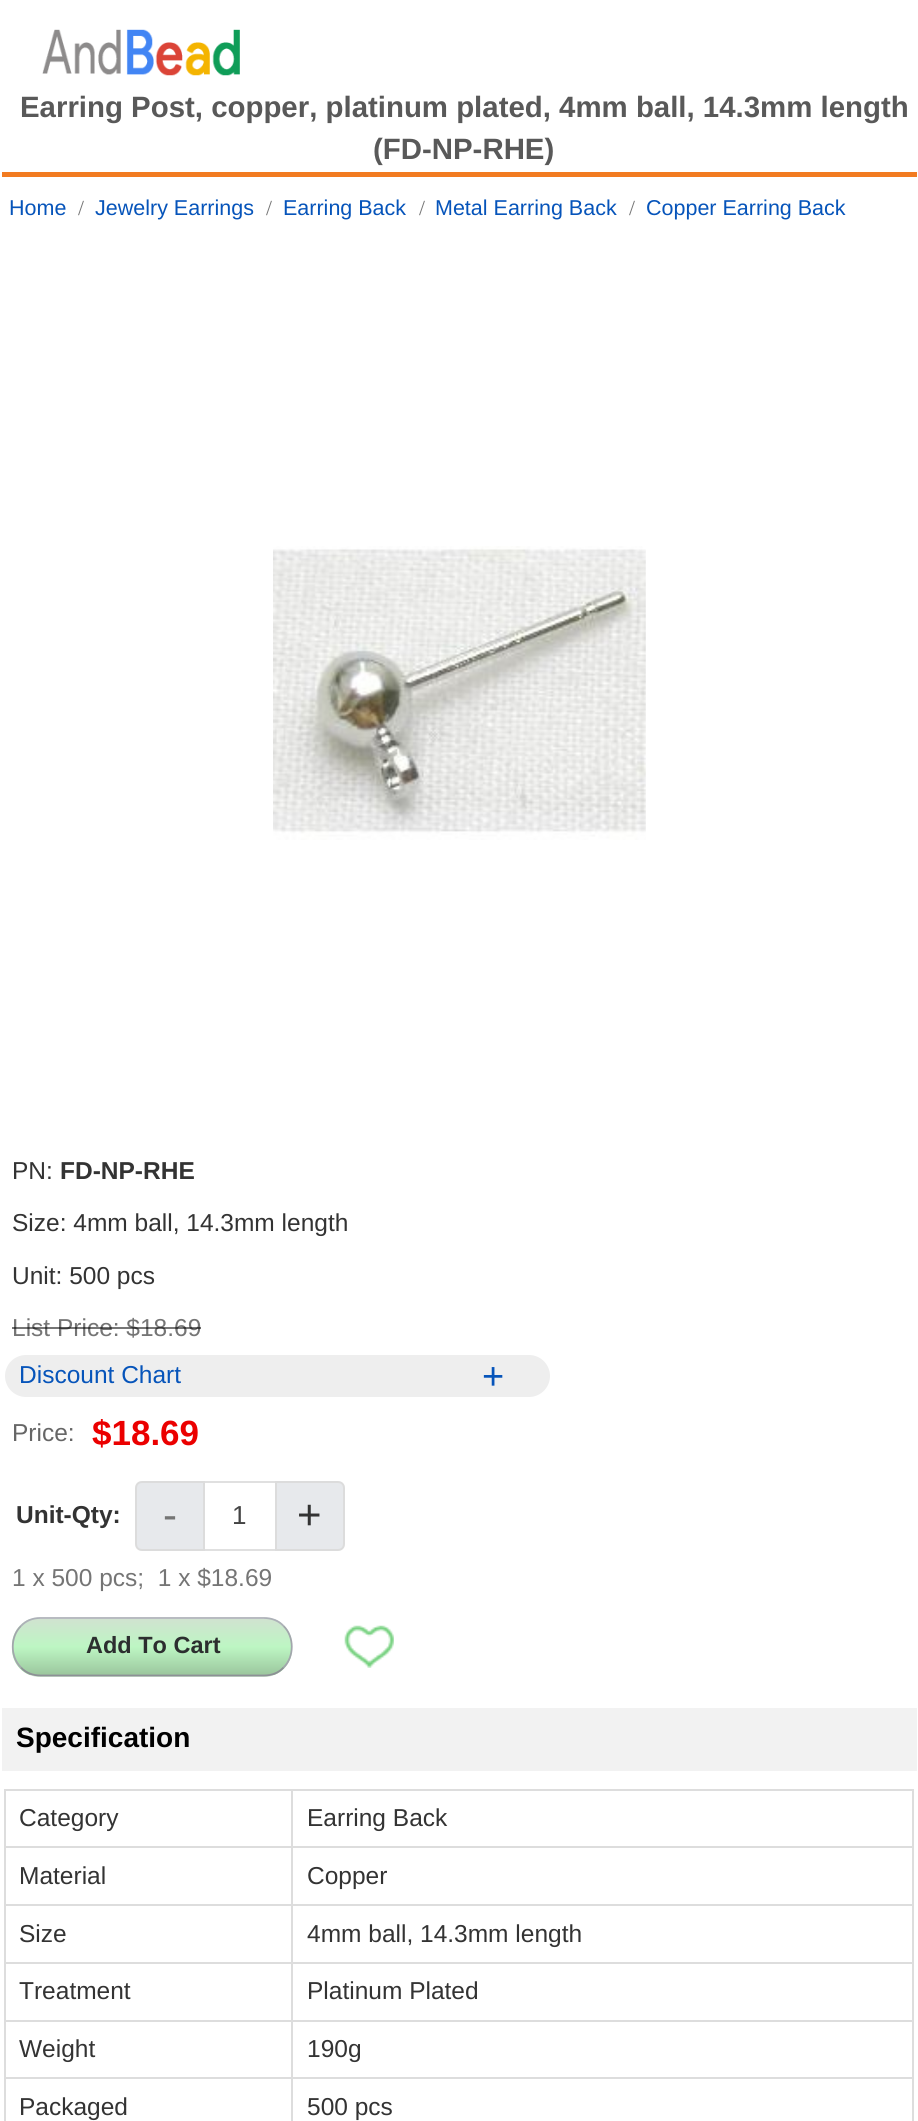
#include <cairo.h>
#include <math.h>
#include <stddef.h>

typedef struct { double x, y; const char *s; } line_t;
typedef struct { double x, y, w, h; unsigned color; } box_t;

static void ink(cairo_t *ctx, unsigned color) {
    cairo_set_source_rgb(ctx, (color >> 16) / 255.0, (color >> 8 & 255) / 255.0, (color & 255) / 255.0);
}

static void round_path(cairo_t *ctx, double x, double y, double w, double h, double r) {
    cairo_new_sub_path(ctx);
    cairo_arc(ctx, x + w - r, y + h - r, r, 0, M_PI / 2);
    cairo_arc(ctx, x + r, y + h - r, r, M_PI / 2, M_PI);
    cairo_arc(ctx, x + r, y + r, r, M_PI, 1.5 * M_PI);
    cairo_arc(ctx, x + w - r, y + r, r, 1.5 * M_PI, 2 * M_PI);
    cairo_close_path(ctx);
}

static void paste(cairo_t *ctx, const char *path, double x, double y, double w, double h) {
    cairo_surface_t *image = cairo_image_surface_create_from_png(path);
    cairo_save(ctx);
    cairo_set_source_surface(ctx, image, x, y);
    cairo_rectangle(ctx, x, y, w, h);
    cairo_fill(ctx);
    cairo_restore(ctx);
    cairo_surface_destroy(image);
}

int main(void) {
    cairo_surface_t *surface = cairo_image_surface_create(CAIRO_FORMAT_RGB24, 918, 2121);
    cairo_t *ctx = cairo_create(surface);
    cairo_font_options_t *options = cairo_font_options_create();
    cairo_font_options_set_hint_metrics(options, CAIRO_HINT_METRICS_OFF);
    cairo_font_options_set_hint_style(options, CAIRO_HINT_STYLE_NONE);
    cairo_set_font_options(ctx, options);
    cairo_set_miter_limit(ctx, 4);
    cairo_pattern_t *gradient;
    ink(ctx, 0xFFFFFF);
    cairo_paint(ctx);
    ink(ctx, 0xF27B21);
    cairo_rectangle(ctx, 2, 172, 915, 5);
    cairo_fill(ctx);
    paste(ctx, "media/1.png", 42, 29, 198, 47);
    cairo_select_font_face(ctx, "Liberation Sans", CAIRO_FONT_SLANT_NORMAL, CAIRO_FONT_WEIGHT_BOLD);
    cairo_set_font_size(ctx, 29.4);
    ink(ctx, 0x595959);
    cairo_move_to(ctx, 20, 117);
    cairo_show_text(ctx, "Earring Post, copper, platinum plated, 4mm ball, 14.3mm length");
    cairo_move_to(ctx, 373, 159);
    cairo_show_text(ctx, "(FD-NP-RHE)");
    cairo_select_font_face(ctx, "Liberation Sans", CAIRO_FONT_SLANT_NORMAL, CAIRO_FONT_WEIGHT_NORMAL);
    cairo_set_font_size(ctx, 21.5);
    ink(ctx, 0x0654BA);
    cairo_move_to(ctx, 9, 215);
    cairo_show_text(ctx, "Home");
    cairo_select_font_face(ctx, "Liberation Serif", CAIRO_FONT_SLANT_NORMAL, CAIRO_FONT_WEIGHT_NORMAL);
    ink(ctx, 0x757575);
    cairo_move_to(ctx, 78, 215);
    cairo_show_text(ctx, "/");
    cairo_select_font_face(ctx, "Liberation Sans", CAIRO_FONT_SLANT_NORMAL, CAIRO_FONT_WEIGHT_NORMAL);
    ink(ctx, 0x0654BA);
    cairo_move_to(ctx, 95, 215);
    cairo_show_text(ctx, "Jewelry Earrings");
    cairo_select_font_face(ctx, "Liberation Serif", CAIRO_FONT_SLANT_NORMAL, CAIRO_FONT_WEIGHT_NORMAL);
    ink(ctx, 0x757575);
    cairo_move_to(ctx, 266, 215);
    cairo_show_text(ctx, "/");
    cairo_select_font_face(ctx, "Liberation Sans", CAIRO_FONT_SLANT_NORMAL, CAIRO_FONT_WEIGHT_NORMAL);
    ink(ctx, 0x0654BA);
    cairo_move_to(ctx, 283, 215);
    cairo_show_text(ctx, "Earring Back");
    cairo_select_font_face(ctx, "Liberation Serif", CAIRO_FONT_SLANT_NORMAL, CAIRO_FONT_WEIGHT_NORMAL);
    ink(ctx, 0x757575);
    cairo_move_to(ctx, 419, 215);
    cairo_show_text(ctx, "/");
    cairo_select_font_face(ctx, "Liberation Sans", CAIRO_FONT_SLANT_NORMAL, CAIRO_FONT_WEIGHT_NORMAL);
    ink(ctx, 0x0654BA);
    cairo_move_to(ctx, 435, 215);
    cairo_show_text(ctx, "Metal Earring Back");
    cairo_select_font_face(ctx, "Liberation Serif", CAIRO_FONT_SLANT_NORMAL, CAIRO_FONT_WEIGHT_NORMAL);
    ink(ctx, 0x757575);
    cairo_move_to(ctx, 629, 215);
    cairo_show_text(ctx, "/");
    cairo_select_font_face(ctx, "Liberation Sans", CAIRO_FONT_SLANT_NORMAL, CAIRO_FONT_WEIGHT_NORMAL);
    ink(ctx, 0x0654BA);
    cairo_move_to(ctx, 646, 215);
    cairo_show_text(ctx, "Copper Earring Back");
    paste(ctx, "media/2.png", 273, 546, 373, 294);
    cairo_set_font_size(ctx, 24.5);
    ink(ctx, 0x333333);
    cairo_move_to(ctx, 12, 1179);
    cairo_show_text(ctx, "PN:");
    cairo_select_font_face(ctx, "Liberation Sans", CAIRO_FONT_SLANT_NORMAL, CAIRO_FONT_WEIGHT_BOLD);
    cairo_move_to(ctx, 60, 1179);
    cairo_show_text(ctx, "FD-NP-RHE");
    cairo_select_font_face(ctx, "Liberation Sans", CAIRO_FONT_SLANT_NORMAL, CAIRO_FONT_WEIGHT_NORMAL);
    cairo_move_to(ctx, 12, 1231);
    cairo_show_text(ctx, "Size: 4mm ball, 14.3mm length");
    cairo_move_to(ctx, 12, 1284);
    cairo_show_text(ctx, "Unit: 500 pcs");
    ink(ctx, 0x757575);
    cairo_move_to(ctx, 12, 1336);
    cairo_show_text(ctx, "List Price: $18.69");
    cairo_set_source_rgba(ctx, 0, 0, 0, 0.54);
    cairo_rectangle(ctx, 12, 1327, 189, 2);
    cairo_fill(ctx);
    ink(ctx, 0xEEEEEE);
    round_path(ctx, 5, 1355, 545, 42, 21);
    cairo_fill(ctx);
    ink(ctx, 0x0654BA);
    cairo_move_to(ctx, 19, 1383);
    cairo_show_text(ctx, "Discount Chart");
    cairo_set_font_size(ctx, 38);
    cairo_move_to(ctx, 482, 1389);
    cairo_show_text(ctx, "+");
    cairo_set_font_size(ctx, 24.5);
    ink(ctx, 0x666666);
    cairo_move_to(ctx, 12, 1441);
    cairo_show_text(ctx, "Price:");
    cairo_select_font_face(ctx, "Liberation Sans", CAIRO_FONT_SLANT_NORMAL, CAIRO_FONT_WEIGHT_BOLD);
    cairo_set_font_size(ctx, 35);
    ink(ctx, 0xEB0000);
    cairo_move_to(ctx, 92, 1445);
    cairo_show_text(ctx, "$18.69");
    cairo_set_font_size(ctx, 24.5);
    ink(ctx, 0x333333);
    cairo_move_to(ctx, 16, 1523);
    cairo_show_text(ctx, "Unit-Qty:");
    ink(ctx, 0xE7E9EC);
    cairo_new_path(ctx);
    cairo_move_to(ctx, 142, 1482);
    cairo_line_to(ctx, 204, 1482);
    cairo_line_to(ctx, 204, 1550);
    cairo_line_to(ctx, 142, 1550);
    cairo_curve_to(ctx, 138.5, 1550, 136, 1547.5, 136, 1544);
    cairo_line_to(ctx, 136, 1488);
    cairo_curve_to(ctx, 136, 1484.5, 138.5, 1482, 142, 1482);
    cairo_close_path(ctx);
    cairo_fill_preserve(ctx);
    ink(ctx, 0xDCDCDC);
    cairo_stroke(ctx);
    cairo_select_font_face(ctx, "Liberation Sans", CAIRO_FONT_SLANT_NORMAL, CAIRO_FONT_WEIGHT_NORMAL);
    cairo_set_font_size(ctx, 42);
    ink(ctx, 0x757575);
    cairo_move_to(ctx, 163, 1529);
    cairo_show_text(ctx, "-");
    ink(ctx, 0xE0E0E0);
    cairo_rectangle(ctx, 205, 1481, 70, 2);
    cairo_fill(ctx);
    cairo_rectangle(ctx, 205, 1549, 70, 2);
    cairo_fill(ctx);
    cairo_set_font_size(ctx, 26);
    ink(ctx, 0x444444);
    cairo_move_to(ctx, 232, 1524);
    cairo_show_text(ctx, "1");
    ink(ctx, 0xE7E9EC);
    cairo_new_path(ctx);
    cairo_move_to(ctx, 276, 1482);
    cairo_line_to(ctx, 338, 1482);
    cairo_curve_to(ctx, 341.5, 1482, 344, 1484.5, 344, 1488);
    cairo_line_to(ctx, 344, 1544);
    cairo_curve_to(ctx, 344, 1547.5, 341.5, 1550, 338, 1550);
    cairo_line_to(ctx, 276, 1550);
    cairo_close_path(ctx);
    cairo_fill_preserve(ctx);
    ink(ctx, 0xDCDCDC);
    cairo_stroke(ctx);
    cairo_set_font_size(ctx, 42);
    ink(ctx, 0x333333);
    cairo_move_to(ctx, 297, 1529);
    cairo_show_text(ctx, "+");
    cairo_set_font_size(ctx, 24.5);
    ink(ctx, 0x757575);
    cairo_move_to(ctx, 12, 1586);
    cairo_show_text(ctx, "1 x 500 pcs;  1 x $18.69");
    cairo_save(ctx);
    round_path(ctx, 12, 1617, 280, 60, 28);
    cairo_clip(ctx);
    gradient = cairo_pattern_create_linear(152, 1619, 152, 1675);
    cairo_pattern_add_color_stop_rgba(gradient, 0, 0.816, 0.89, 0.816, 1);
    cairo_pattern_add_color_stop_rgba(gradient, 0.5, 0.741, 0.965, 0.765, 1);
    cairo_pattern_add_color_stop_rgba(gradient, 1, 0.608, 0.776, 0.616, 1);
    cairo_set_source(ctx, gradient);
    cairo_pattern_destroy(gradient);
    cairo_rectangle(ctx, 12, 1619, 280, 56);
    cairo_fill(ctx);
    gradient = cairo_pattern_create_linear(152, 1675, 152, 1731);
    cairo_pattern_add_color_stop_rgba(gradient, 0, 0.816, 0.89, 0.816, 1);
    cairo_pattern_add_color_stop_rgba(gradient, 0.5, 0.741, 0.965, 0.765, 1);
    cairo_pattern_add_color_stop_rgba(gradient, 1, 0.608, 0.776, 0.616, 1);
    cairo_set_source(ctx, gradient);
    cairo_pattern_destroy(gradient);
    cairo_rectangle(ctx, 29, 1675, 245, 2);
    cairo_fill(ctx);
    cairo_restore(ctx);
    cairo_new_path(ctx);
    cairo_move_to(ctx, 21, 1626);
    cairo_curve_to(ctx, 26, 1620.5, 33, 1618, 40, 1618);
    cairo_line_to(ctx, 264, 1618);
    cairo_curve_to(ctx, 271.5, 1618, 278.5, 1620.5, 283.5, 1626);
    ink(ctx, 0xADB1B8);
    cairo_set_line_width(ctx, 1.8);
    cairo_stroke(ctx);
    cairo_new_path(ctx);
    cairo_move_to(ctx, 283.5, 1626);
    cairo_curve_to(ctx, 294.5, 1636.5, 294.5, 1657, 283.5, 1667.5);
    ink(ctx, 0xA2A6AC);
    cairo_stroke(ctx);
    cairo_new_path(ctx);
    cairo_move_to(ctx, 283.5, 1667.5);
    cairo_curve_to(ctx, 278.5, 1673, 271.5, 1675.5, 264, 1675.5);
    cairo_line_to(ctx, 40.5, 1675.5);
    cairo_curve_to(ctx, 33, 1675.5, 26, 1673, 21, 1667.5);
    ink(ctx, 0x8D9096);
    cairo_stroke(ctx);
    cairo_new_path(ctx);
    cairo_move_to(ctx, 21, 1667.5);
    cairo_curve_to(ctx, 10, 1657, 10, 1636.5, 21, 1626);
    ink(ctx, 0xA2A6AC);
    cairo_stroke(ctx);
    cairo_select_font_face(ctx, "Liberation Sans", CAIRO_FONT_SLANT_NORMAL, CAIRO_FONT_WEIGHT_BOLD);
    cairo_set_font_size(ctx, 23.5);
    ink(ctx, 0x2C2E2F);
    cairo_move_to(ctx, 86, 1653);
    cairo_show_text(ctx, "Add To Cart");
    paste(ctx, "media/3.png", 344, 1625, 50, 43);
    ink(ctx, 0xF2F2F2);
    cairo_rectangle(ctx, 2, 1708, 915, 63);
    cairo_fill(ctx);
    cairo_set_font_size(ctx, 28);
    ink(ctx, 0x000000);
    cairo_move_to(ctx, 16, 1747);
    cairo_show_text(ctx, "Specification");
    {
        static const box_t items[] = {
            {291, 1789, 623, 2, 0xDDDDDD},
            {291, 1846, 623, 2, 0xDDDDDD},
            {291, 1904, 623, 2, 0xDDDDDD},
            {291, 1962, 623, 2, 0xDDDDDD},
            {291, 2020, 623, 2, 0xDDDDDD},
            {291, 2077, 623, 2, 0xDDDDDD},
            {291, 2077, 2, 44, 0xDDDDDD},
            {4, 2077, 288, 2, 0xDDDDDD},
            {291, 2020, 2, 59, 0xDDDDDD},
            {4, 2020, 288, 2, 0xDDDDDD},
            {291, 1962, 2, 59, 0xDDDDDD},
            {4, 1962, 288, 2, 0xDDDDDD},
            {291, 1904, 2, 60, 0xDDDDDD},
            {4, 1904, 288, 2, 0xDDDDDD},
            {291, 1846, 2, 60, 0xDDDDDD},
            {4, 1846, 288, 2, 0xDDDDDD},
            {291, 1789, 2, 59, 0xDDDDDD},
            {4, 1789, 288, 2, 0xDDDDDD},
            {4, 2077, 2, 44, 0xDDDDDD},
            {4, 2020, 2, 59, 0xDDDDDD},
            {4, 1962, 2, 59, 0xDDDDDD},
            {4, 1904, 2, 60, 0xDDDDDD},
            {4, 1846, 2, 60, 0xDDDDDD},
            {4, 1789, 2, 59, 0xDDDDDD},
        };
        for (size_t i = 0; i < sizeof items / sizeof *items; i++) {
            ink(ctx, items[i].color);
            cairo_rectangle(ctx, items[i].x, items[i].y, items[i].w, items[i].h);
            cairo_fill(ctx);
        }
    }
    cairo_select_font_face(ctx, "Liberation Sans", CAIRO_FONT_SLANT_NORMAL, CAIRO_FONT_WEIGHT_NORMAL);
    cairo_set_font_size(ctx, 24.5);
    ink(ctx, 0x333333);
    cairo_move_to(ctx, 19, 1826);
    cairo_show_text(ctx, "Category");
    {
        static const box_t items[] = {
            {912, 2077, 2, 44, 0xDDDDDD},
            {912, 2020, 2, 59, 0xDDDDDD},
            {912, 1962, 2, 59, 0xDDDDDD},
            {912, 1904, 2, 60, 0xDDDDDD},
            {912, 1846, 2, 60, 0xDDDDDD},
            {912, 1789, 2, 59, 0xDDDDDD},
        };
        for (size_t i = 0; i < sizeof items / sizeof *items; i++) {
            ink(ctx, items[i].color);
            cairo_rectangle(ctx, items[i].x, items[i].y, items[i].w, items[i].h);
            cairo_fill(ctx);
        }
    }
    ink(ctx, 0x333333);
    {
        static const line_t items[] = {
            {307, 1826, "Earring Back"},
            {19, 1884, "Material"},
            {307, 1884, "Copper"},
            {19, 1942, "Size"},
            {307, 1942, "4mm ball, 14.3mm length"},
            {19, 1999, "Treatment"},
            {307, 1999, "Platinum Plated"},
            {19, 2057, "Weight"},
            {307, 2057, "190g"},
            {19, 2115, "Packaged"},
            {307, 2115, "500 pcs"},
        };
        for (size_t i = 0; i < sizeof items / sizeof *items; i++) {
            cairo_move_to(ctx, items[i].x, items[i].y);
            cairo_show_text(ctx, items[i].s);
        }
    }
    cairo_surface_write_to_png(surface, "image.png");
    cairo_font_options_destroy(options);
    cairo_destroy(ctx);
    cairo_surface_destroy(surface);
    return 0;
}
